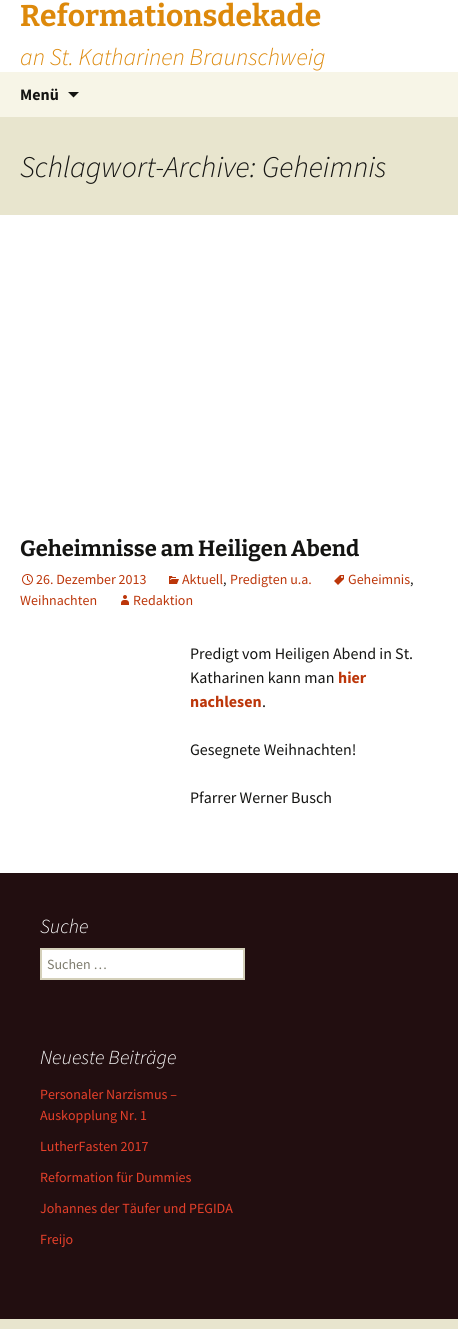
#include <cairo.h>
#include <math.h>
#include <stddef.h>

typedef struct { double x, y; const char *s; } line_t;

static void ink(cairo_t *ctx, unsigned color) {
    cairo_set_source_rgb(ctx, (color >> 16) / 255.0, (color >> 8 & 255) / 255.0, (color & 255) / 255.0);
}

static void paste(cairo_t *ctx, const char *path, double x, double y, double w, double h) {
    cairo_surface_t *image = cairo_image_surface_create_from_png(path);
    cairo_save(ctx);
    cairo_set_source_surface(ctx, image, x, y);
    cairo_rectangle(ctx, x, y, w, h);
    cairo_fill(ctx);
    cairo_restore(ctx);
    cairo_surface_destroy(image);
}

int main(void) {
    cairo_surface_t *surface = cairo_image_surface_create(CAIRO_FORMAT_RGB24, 458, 1329);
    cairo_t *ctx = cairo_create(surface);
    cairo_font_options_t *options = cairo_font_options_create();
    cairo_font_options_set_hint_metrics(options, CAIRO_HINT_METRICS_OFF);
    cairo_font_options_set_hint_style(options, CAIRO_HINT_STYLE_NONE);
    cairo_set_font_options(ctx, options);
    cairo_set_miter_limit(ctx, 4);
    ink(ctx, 0xFFFFFF);
    cairo_paint(ctx);
    cairo_select_font_face(ctx, "Bitter", CAIRO_FONT_SLANT_NORMAL, CAIRO_FONT_WEIGHT_BOLD);
    cairo_set_font_size(ctx, 30);
    ink(ctx, 0xDD890B);
    cairo_move_to(ctx, 20, 26);
    cairo_show_text(ctx, "Reformationsdekade");
    cairo_select_font_face(ctx, "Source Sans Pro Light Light", CAIRO_FONT_SLANT_ITALIC, CAIRO_FONT_WEIGHT_NORMAL);
    cairo_set_font_size(ctx, 24);
    cairo_move_to(ctx, 20, 65);
    cairo_show_text(ctx, "an St. Katharinen Braunschweig");
    ink(ctx, 0xF7F5E7);
    cairo_rectangle(ctx, 0, 72, 458, 45);
    cairo_fill(ctx);
    cairo_select_font_face(ctx, "Source Sans Pro", CAIRO_FONT_SLANT_NORMAL, CAIRO_FONT_WEIGHT_BOLD);
    cairo_set_font_size(ctx, 16);
    ink(ctx, 0x141412);
    cairo_move_to(ctx, 20, 100);
    cairo_show_text(ctx, "Menü");
    cairo_new_path(ctx);
    cairo_move_to(ctx, 68, 92);
    cairo_line_to(ctx, 73.5, 97.5);
    cairo_line_to(ctx, 79, 92);
    cairo_close_path(ctx);
    cairo_fill(ctx);
    ink(ctx, 0xE8E5CE);
    cairo_rectangle(ctx, 0, 117, 458, 98);
    cairo_fill(ctx);
    cairo_select_font_face(ctx, "Source Sans Pro Light Light", CAIRO_FONT_SLANT_ITALIC, CAIRO_FONT_WEIGHT_NORMAL);
    cairo_set_font_size(ctx, 30);
    ink(ctx, 0x141412);
    cairo_move_to(ctx, 20, 177);
    cairo_show_text(ctx, "Schlagwort-Archive: Geheimnis");
    cairo_select_font_face(ctx, "Bitter", CAIRO_FONT_SLANT_NORMAL, CAIRO_FONT_WEIGHT_BOLD);
    cairo_set_font_size(ctx, 22);
    cairo_move_to(ctx, 20, 556);
    cairo_show_text(ctx, "Geheimnisse am Heiligen Abend");
    paste(ctx, "media/1.png", 334, 575, 10, 10);
    cairo_select_font_face(ctx, "Source Sans Pro", CAIRO_FONT_SLANT_NORMAL, CAIRO_FONT_WEIGHT_NORMAL);
    cairo_set_font_size(ctx, 14);
    ink(ctx, 0xBC360A);
    cairo_move_to(ctx, 348, 584);
    cairo_show_text(ctx, "Geheimnis");
    ink(ctx, 0x141412);
    cairo_move_to(ctx, 410, 584);
    cairo_show_text(ctx, ",");
    ink(ctx, 0xBC360A);
    cairo_move_to(ctx, 20, 605);
    cairo_show_text(ctx, "Weihnachten");
    paste(ctx, "media/2.png", 22, 574, 11, 11);
    cairo_move_to(ctx, 36, 584);
    cairo_show_text(ctx, "26. Dezember 2013");
    paste(ctx, "media/3.png", 169, 576, 10, 8);
    cairo_move_to(ctx, 182, 584);
    cairo_show_text(ctx, "Aktuell");
    ink(ctx, 0x141412);
    cairo_move_to(ctx, 223, 584);
    cairo_show_text(ctx, ",");
    ink(ctx, 0xBC360A);
    cairo_move_to(ctx, 230, 584);
    cairo_show_text(ctx, "Predigten u.a.");
    paste(ctx, "media/4.png", 121, 595, 8, 10);
    cairo_move_to(ctx, 133, 605);
    cairo_show_text(ctx, "Redaktion");
    cairo_set_font_size(ctx, 16);
    ink(ctx, 0x141412);
    cairo_move_to(ctx, 190, 659);
    cairo_show_text(ctx, "Predigt vom Heiligen Abend in St.");
    cairo_move_to(ctx, 190, 683);
    cairo_show_text(ctx, "Katharinen kann man");
    cairo_select_font_face(ctx, "Source Sans Pro", CAIRO_FONT_SLANT_NORMAL, CAIRO_FONT_WEIGHT_BOLD);
    ink(ctx, 0xBC360A);
    cairo_move_to(ctx, 338, 683);
    cairo_show_text(ctx, "hier");
    cairo_move_to(ctx, 190, 707);
    cairo_show_text(ctx, "nachlesen");
    cairo_select_font_face(ctx, "Source Sans Pro", CAIRO_FONT_SLANT_NORMAL, CAIRO_FONT_WEIGHT_NORMAL);
    ink(ctx, 0x141412);
    {
        static const line_t items[] = {
            {262, 707, "."},
            {190, 755, "Gesegnete Weihnachten!"},
            {190, 803, "Pfarrer Werner Busch"},
        };
        for (size_t i = 0; i < sizeof items / sizeof *items; i++) {
            cairo_move_to(ctx, items[i].x, items[i].y);
            cairo_show_text(ctx, items[i].s);
        }
    }
    ink(ctx, 0xE8E5CE);
    cairo_rectangle(ctx, 0, 1319, 458, 10);
    cairo_fill(ctx);
    ink(ctx, 0x220E10);
    cairo_rectangle(ctx, 0, 873, 458, 446);
    cairo_fill(ctx);
    cairo_select_font_face(ctx, "Source Sans Pro Light Light", CAIRO_FONT_SLANT_ITALIC, CAIRO_FONT_WEIGHT_NORMAL);
    cairo_set_font_size(ctx, 20);
    ink(ctx, 0xFFFFFF);
    cairo_move_to(ctx, 40, 933);
    cairo_show_text(ctx, "Suche");
    cairo_rectangle(ctx, 41, 949, 203, 30);
    cairo_fill_preserve(ctx);
    ink(ctx, 0xD4D0BA);
    cairo_stroke(ctx);
    cairo_select_font_face(ctx, "Source Sans Pro", CAIRO_FONT_SLANT_NORMAL, CAIRO_FONT_WEIGHT_NORMAL);
    cairo_set_font_size(ctx, 14);
    ink(ctx, 0x7D7B6D);
    cairo_move_to(ctx, 47, 969);
    cairo_show_text(ctx, "Suchen …");
    cairo_select_font_face(ctx, "Source Sans Pro Light Light", CAIRO_FONT_SLANT_ITALIC, CAIRO_FONT_WEIGHT_NORMAL);
    cairo_set_font_size(ctx, 20);
    ink(ctx, 0xFFFFFF);
    cairo_move_to(ctx, 40, 1064);
    cairo_show_text(ctx, "Neueste Beiträge");
    cairo_select_font_face(ctx, "Source Sans Pro", CAIRO_FONT_SLANT_NORMAL, CAIRO_FONT_WEIGHT_NORMAL);
    cairo_set_font_size(ctx, 14);
    ink(ctx, 0xE6402A);
    {
        static const line_t items[] = {
            {40, 1099, "Personaler Narzismus –"},
            {40, 1120, "Auskopplung Nr. 1"},
            {40, 1151, "LutherFasten 2017"},
            {40, 1182, "Reformation für Dummies"},
            {40, 1213, "Johannes der Täufer und PEGIDA"},
            {40, 1244, "Freijo"},
        };
        for (size_t i = 0; i < sizeof items / sizeof *items; i++) {
            cairo_move_to(ctx, items[i].x, items[i].y);
            cairo_show_text(ctx, items[i].s);
        }
    }
    cairo_surface_write_to_png(surface, "image.png");
    cairo_font_options_destroy(options);
    cairo_destroy(ctx);
    cairo_surface_destroy(surface);
    return 0;
}
